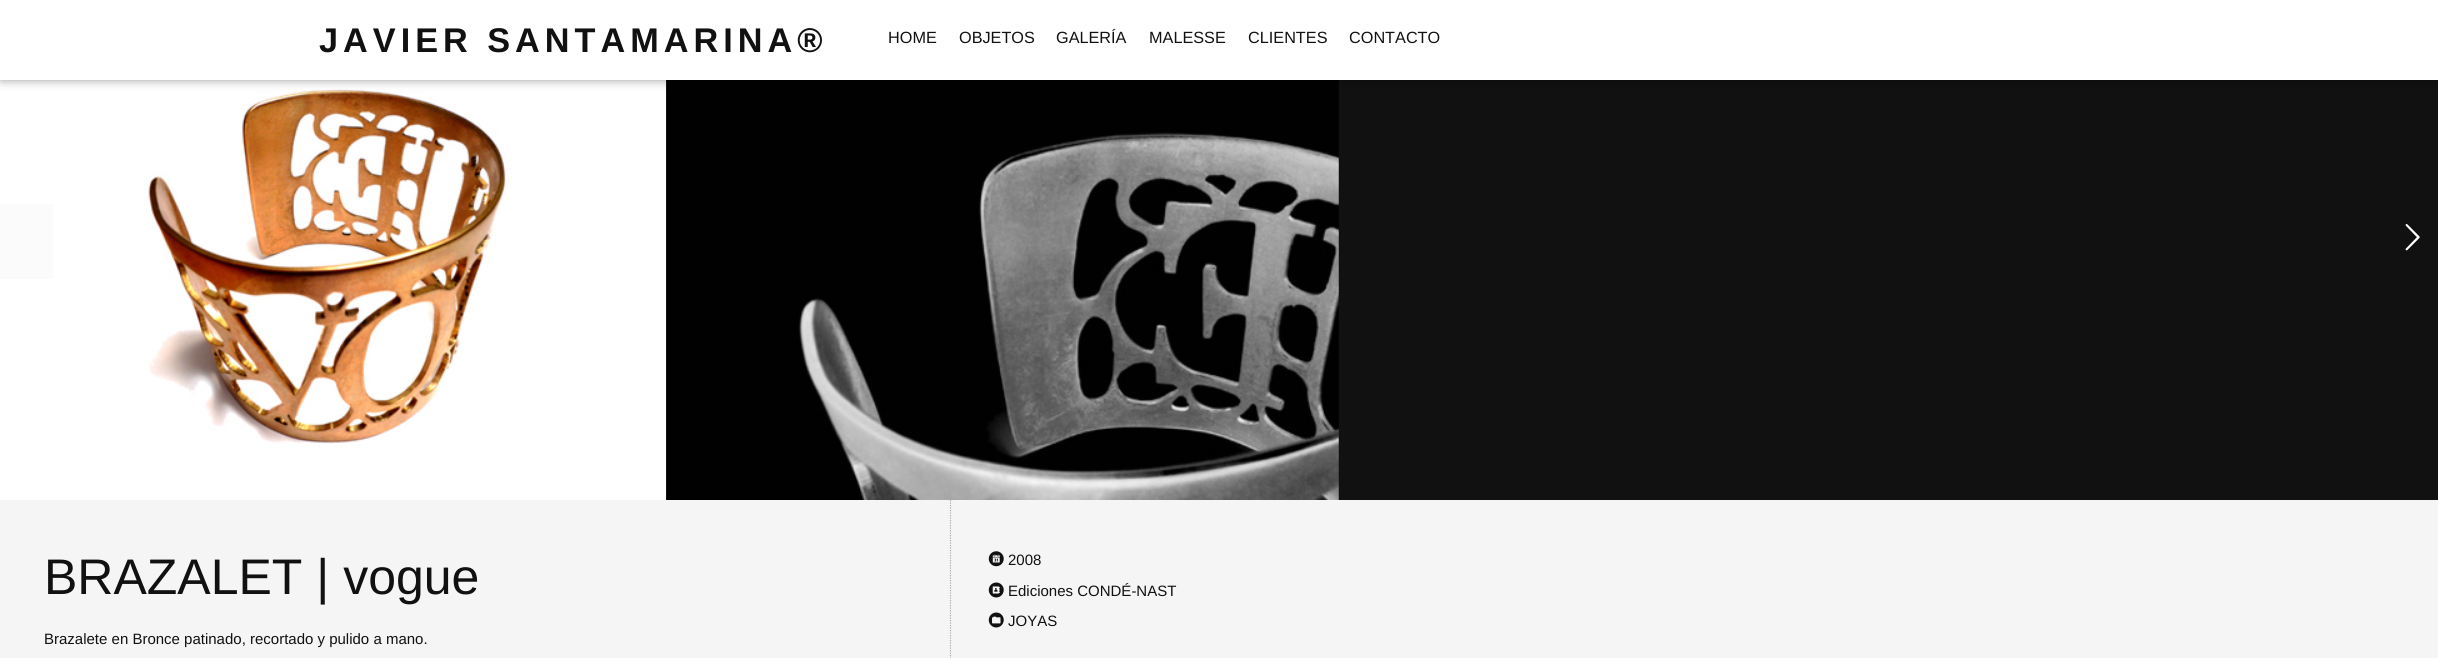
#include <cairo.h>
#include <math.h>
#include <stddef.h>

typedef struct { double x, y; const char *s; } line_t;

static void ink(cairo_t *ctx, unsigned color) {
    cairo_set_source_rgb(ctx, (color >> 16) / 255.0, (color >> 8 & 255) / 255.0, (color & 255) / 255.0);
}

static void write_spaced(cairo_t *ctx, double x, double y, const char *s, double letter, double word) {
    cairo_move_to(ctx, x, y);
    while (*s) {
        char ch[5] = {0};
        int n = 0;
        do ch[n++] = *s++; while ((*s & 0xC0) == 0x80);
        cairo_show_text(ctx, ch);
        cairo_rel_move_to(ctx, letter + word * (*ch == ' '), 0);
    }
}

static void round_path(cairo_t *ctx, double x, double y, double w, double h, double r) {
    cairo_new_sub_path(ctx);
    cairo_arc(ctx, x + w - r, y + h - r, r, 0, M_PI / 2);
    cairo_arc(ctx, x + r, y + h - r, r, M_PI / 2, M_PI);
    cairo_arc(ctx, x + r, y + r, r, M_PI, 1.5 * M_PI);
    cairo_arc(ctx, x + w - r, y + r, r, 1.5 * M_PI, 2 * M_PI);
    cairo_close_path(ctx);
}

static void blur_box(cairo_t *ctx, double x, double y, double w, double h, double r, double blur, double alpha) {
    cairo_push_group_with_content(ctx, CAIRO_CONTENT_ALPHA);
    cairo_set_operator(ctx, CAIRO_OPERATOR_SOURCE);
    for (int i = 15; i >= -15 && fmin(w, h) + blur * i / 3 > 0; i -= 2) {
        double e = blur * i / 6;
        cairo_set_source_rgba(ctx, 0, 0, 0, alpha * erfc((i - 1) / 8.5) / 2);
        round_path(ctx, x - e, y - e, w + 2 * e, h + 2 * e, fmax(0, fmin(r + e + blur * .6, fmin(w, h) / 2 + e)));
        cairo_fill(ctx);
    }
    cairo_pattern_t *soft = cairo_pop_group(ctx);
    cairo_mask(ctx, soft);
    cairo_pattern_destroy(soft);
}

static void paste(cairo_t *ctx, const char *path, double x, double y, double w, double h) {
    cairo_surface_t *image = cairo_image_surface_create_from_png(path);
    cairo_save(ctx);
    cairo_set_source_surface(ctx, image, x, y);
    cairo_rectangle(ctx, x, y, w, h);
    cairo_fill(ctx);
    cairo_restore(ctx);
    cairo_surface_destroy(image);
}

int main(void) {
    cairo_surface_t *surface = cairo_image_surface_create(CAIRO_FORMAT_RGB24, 2438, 658);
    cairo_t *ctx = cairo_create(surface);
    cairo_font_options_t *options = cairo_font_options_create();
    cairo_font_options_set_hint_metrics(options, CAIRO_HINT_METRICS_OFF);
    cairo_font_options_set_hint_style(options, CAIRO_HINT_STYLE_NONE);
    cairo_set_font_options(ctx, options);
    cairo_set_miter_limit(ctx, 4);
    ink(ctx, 0xF5F5F5);
    cairo_paint(ctx);
    ink(ctx, 0x111111);
    cairo_rectangle(ctx, 666, 80, 1772, 420);
    cairo_fill(ctx);
    paste(ctx, "media/1.png", 0, 80, 667, 420);
    paste(ctx, "media/2.png", 666, 80, 673, 420);
    ink(ctx, 0x000000);
    blur_box(ctx, 1, 0, 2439, 80, 0, 5, 0.4);
    ink(ctx, 0xFFFFFF);
    cairo_rectangle(ctx, 0, 0, 2438, 80);
    cairo_fill(ctx);
    cairo_select_font_face(ctx, "Liberation Sans", CAIRO_FONT_SLANT_NORMAL, CAIRO_FONT_WEIGHT_BOLD);
    cairo_set_font_size(ctx, 34.25);
    ink(ctx, 0x111111);
    write_spaced(ctx, 319, 52, "JAVIER SANTAMARINA®", 5, 0);
    cairo_select_font_face(ctx, "Liberation Sans", CAIRO_FONT_SLANT_NORMAL, CAIRO_FONT_WEIGHT_NORMAL);
    cairo_set_font_size(ctx, 16.25);
    {
        static const line_t items[] = {
            {888, 43, "HOME"},
            {959, 43, "OBJETOS"},
            {1056, 43, "GALERÍA"},
            {1149, 43, "MALESSE"},
            {1248, 43, "CLIENTES"},
            {1349, 43, "CONTACTO"},
        };
        for (size_t i = 0; i < sizeof items / sizeof *items; i++) {
            cairo_move_to(ctx, items[i].x, items[i].y);
            cairo_show_text(ctx, items[i].s);
        }
    }
    ink(ctx, 0xFBFBFB);
    cairo_rectangle(ctx, 0, 204, 53, 75);
    cairo_fill(ctx);
    paste(ctx, "media/3.png", 2405, 224, 15, 27);
    cairo_new_path(ctx);
    cairo_move_to(ctx, 950.5, 500);
    cairo_line_to(ctx, 950.5, 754);
    ink(ctx, 0xABABAB);
    cairo_set_line_width(ctx, 1.2);
    cairo_set_dash(ctx, (double[]){1.25, 1.25}, 2, 0);
    cairo_stroke(ctx);
    cairo_set_font_size(ctx, 50);
    ink(ctx, 0x111111);
    cairo_move_to(ctx, 44, 594);
    cairo_show_text(ctx, "BRAZALET | vogue");
    cairo_set_font_size(ctx, 15);
    cairo_move_to(ctx, 44, 644);
    cairo_show_text(ctx, "Brazalete en Bronce patinado, recortado y pulido a mano.");
    paste(ctx, "media/4.png", 988, 551, 16, 16);
    cairo_move_to(ctx, 1008, 565);
    cairo_show_text(ctx, "2008");
    paste(ctx, "media/5.png", 988, 582, 16, 16);
    cairo_move_to(ctx, 1008, 596);
    cairo_show_text(ctx, "Ediciones CONDÉ-NAST");
    paste(ctx, "media/6.png", 988, 612, 16, 16);
    cairo_move_to(ctx, 1008, 626);
    cairo_show_text(ctx, "JOYAS");
    cairo_surface_write_to_png(surface, "image.png");
    cairo_font_options_destroy(options);
    cairo_destroy(ctx);
    cairo_surface_destroy(surface);
    return 0;
}
